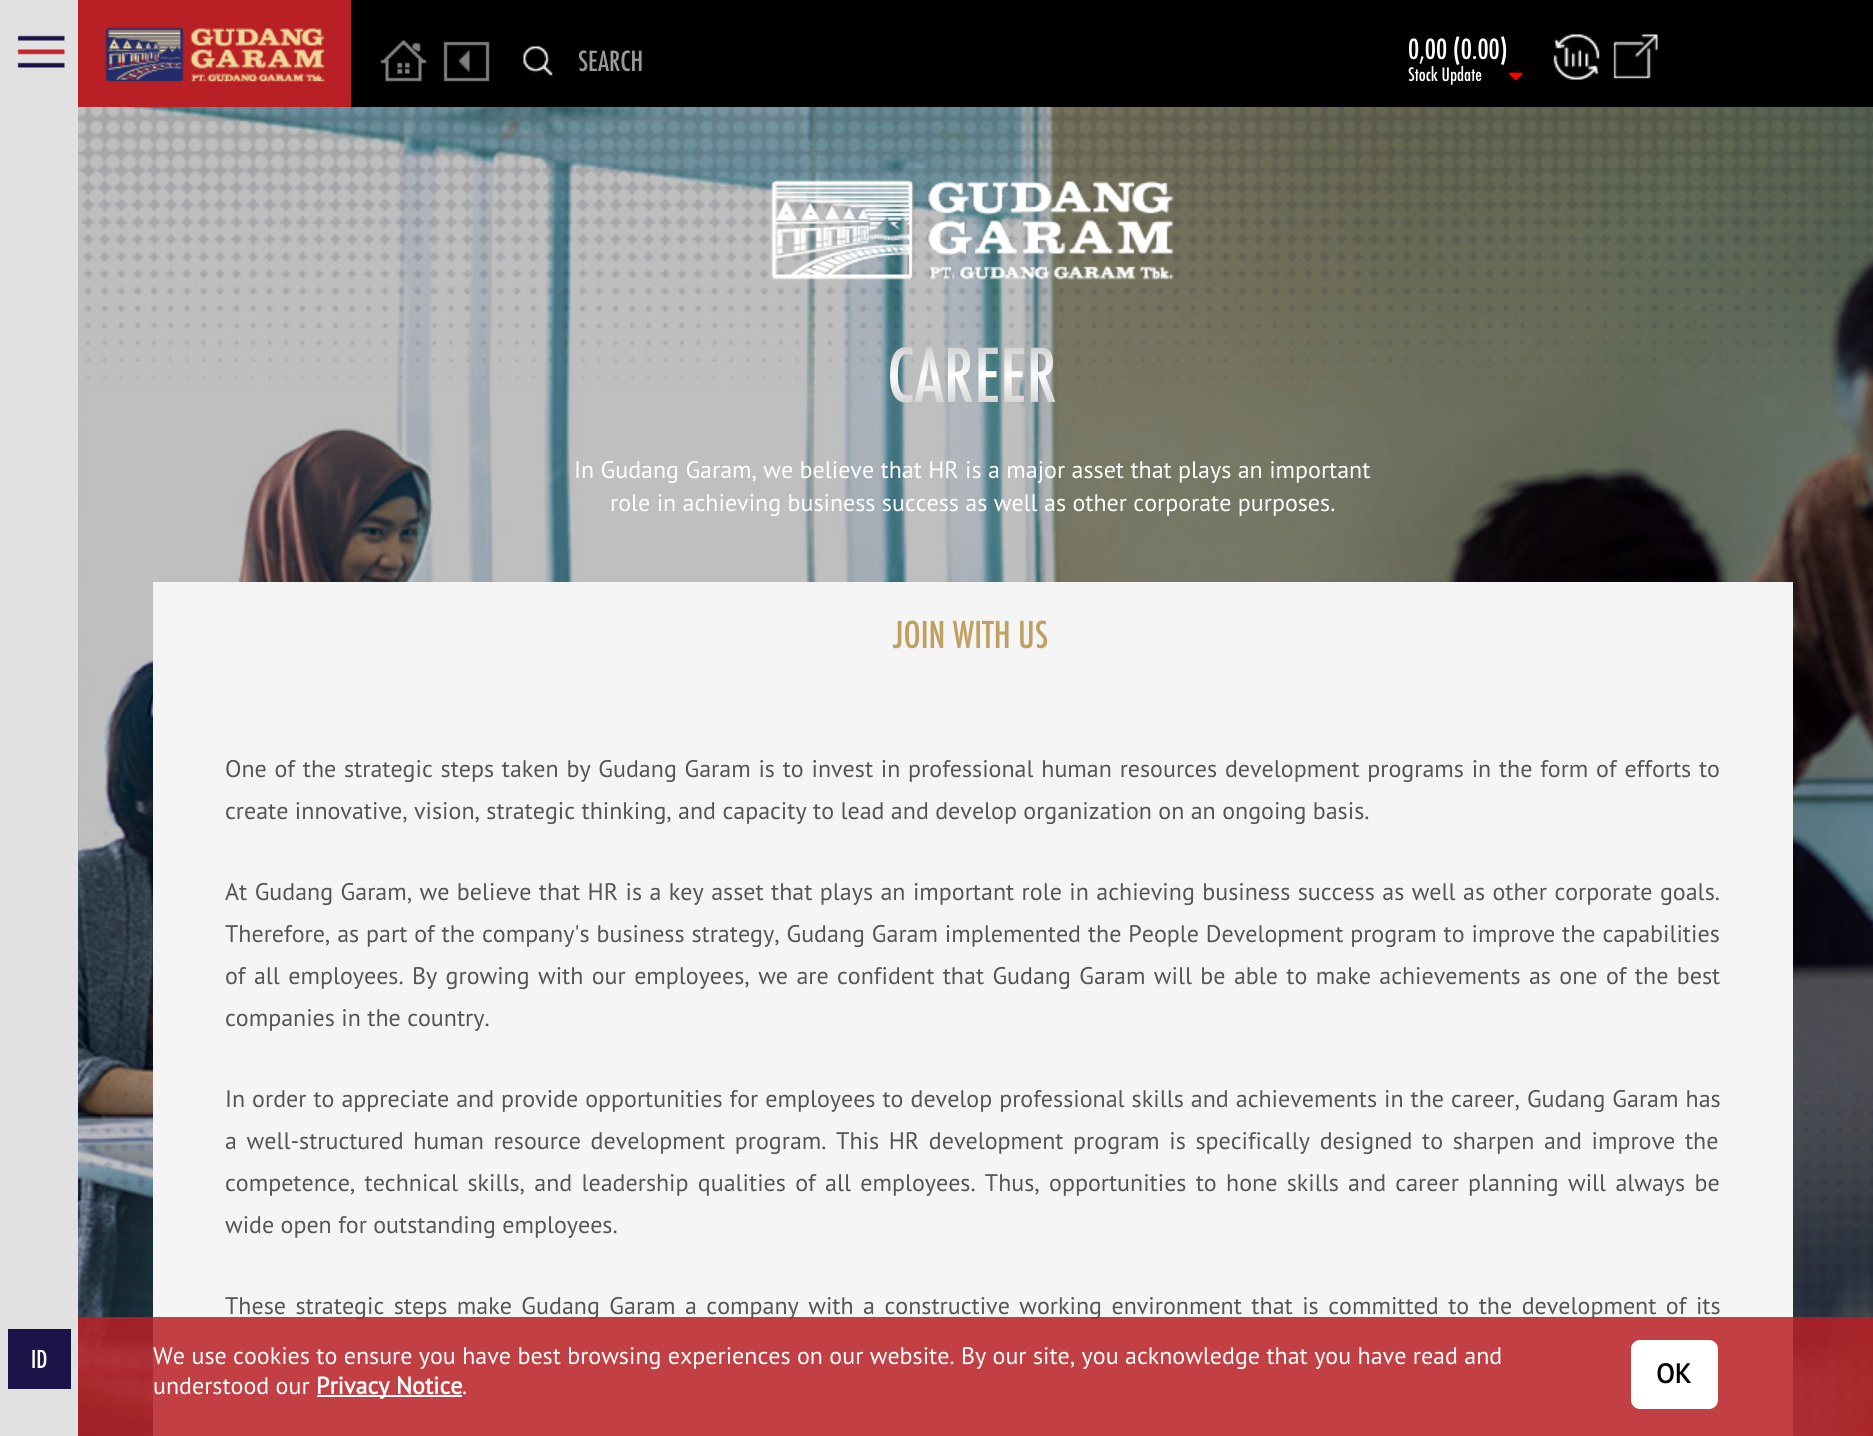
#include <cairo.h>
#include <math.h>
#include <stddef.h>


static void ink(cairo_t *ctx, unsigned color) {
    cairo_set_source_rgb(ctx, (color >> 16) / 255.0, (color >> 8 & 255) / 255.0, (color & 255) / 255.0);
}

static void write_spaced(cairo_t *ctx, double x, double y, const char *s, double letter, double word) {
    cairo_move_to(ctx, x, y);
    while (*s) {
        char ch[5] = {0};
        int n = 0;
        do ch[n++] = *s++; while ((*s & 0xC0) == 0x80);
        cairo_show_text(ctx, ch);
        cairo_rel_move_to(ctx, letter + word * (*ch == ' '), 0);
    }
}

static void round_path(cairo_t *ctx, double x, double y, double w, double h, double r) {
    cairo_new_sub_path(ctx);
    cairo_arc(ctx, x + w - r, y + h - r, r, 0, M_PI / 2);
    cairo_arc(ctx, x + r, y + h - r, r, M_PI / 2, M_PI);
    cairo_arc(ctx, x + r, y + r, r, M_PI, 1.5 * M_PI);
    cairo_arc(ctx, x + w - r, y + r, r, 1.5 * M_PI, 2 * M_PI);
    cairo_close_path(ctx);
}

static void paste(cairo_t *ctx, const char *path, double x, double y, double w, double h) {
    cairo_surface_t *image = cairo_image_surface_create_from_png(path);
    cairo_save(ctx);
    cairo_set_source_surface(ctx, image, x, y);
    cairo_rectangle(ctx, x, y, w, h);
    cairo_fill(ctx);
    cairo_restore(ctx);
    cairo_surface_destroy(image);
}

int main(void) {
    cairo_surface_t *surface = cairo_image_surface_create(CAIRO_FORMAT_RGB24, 1873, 1436);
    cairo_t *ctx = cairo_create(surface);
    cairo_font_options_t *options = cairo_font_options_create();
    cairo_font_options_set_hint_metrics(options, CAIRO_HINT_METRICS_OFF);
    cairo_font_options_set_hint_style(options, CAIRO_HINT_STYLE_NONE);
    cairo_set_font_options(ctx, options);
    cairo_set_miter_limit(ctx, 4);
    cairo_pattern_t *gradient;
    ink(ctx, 0xFFFFFF);
    cairo_paint(ctx);
    ink(ctx, 0x000000);
    cairo_rectangle(ctx, 351, 0, 1522, 107);
    cairo_fill(ctx);
    ink(ctx, 0xE1E1E1);
    cairo_rectangle(ctx, 0, 0, 78, 1436);
    cairo_fill(ctx);
    paste(ctx, "media/1.png", 17, 35, 48, 33);
    ink(ctx, 0xB92025);
    cairo_rectangle(ctx, 78, 0, 273, 107);
    cairo_fill(ctx);
    paste(ctx, "media/2.png", 104, 26, 221, 56);
    paste(ctx, "media/3.png", 380, 40, 47, 42);
    paste(ctx, "media/4.png", 443, 41, 47, 41);
    paste(ctx, "media/5.png", 523, 46, 30, 30);
    cairo_select_font_face(ctx, "Futura Medium", CAIRO_FONT_SLANT_NORMAL, CAIRO_FONT_WEIGHT_NORMAL);
    cairo_set_font_size(ctx, 27);
    ink(ctx, 0x999999);
    cairo_move_to(ctx, 578, 71);
    cairo_show_text(ctx, "SEARCH");
    ink(ctx, 0xFFFFFF);
    cairo_move_to(ctx, 1408, 59);
    cairo_show_text(ctx, "0,00 (0.00)");
    cairo_set_font_size(ctx, 18);
    cairo_move_to(ctx, 1408, 81);
    cairo_show_text(ctx, "Stock Update");
    paste(ctx, "media/6.png", 1509, 72, 14, 9);
    paste(ctx, "media/7.png", 1553, 34, 47, 46);
    paste(ctx, "media/8.png", 1613, 34, 45, 45);
    ink(ctx, 0x1A1448);
    cairo_rectangle(ctx, 8, 1329, 63, 60);
    cairo_fill(ctx);
    cairo_set_font_size(ctx, 24);
    ink(ctx, 0xFFFFFF);
    cairo_move_to(ctx, 31, 1368);
    cairo_show_text(ctx, "ID");
    paste(ctx, "media/9.png", 78, 107, 1795, 1329);
    paste(ctx, "media/10.png", 770, 179, 404, 101);
    cairo_set_font_size(ctx, 72);
    gradient = cairo_pattern_create_radial(0, 0, 0, 0, 0, 1);
    cairo_pattern_set_matrix(gradient, &(cairo_matrix_t){1.0 / 1159, 0, 0, 1.0 / 56, -1.0 * 972 / 1159, -1.0 * 376 / 56});
    cairo_pattern_add_color_stop_rgba(gradient, 0, 1, 1, 1, 1);
    cairo_pattern_add_color_stop_rgba(gradient, 0.5, 0.827, 0.827, 0.827, 1);
    cairo_pattern_add_color_stop_rgba(gradient, 1, 0.502, 0.502, 0.502, 1);
    cairo_set_source(ctx, gradient);
    cairo_pattern_destroy(gradient);
    cairo_move_to(ctx, 887, 402);
    cairo_show_text(ctx, "CAREER");
    cairo_select_font_face(ctx, "PT Sans", CAIRO_FONT_SLANT_NORMAL, CAIRO_FONT_WEIGHT_NORMAL);
    cairo_set_font_size(ctx, 24);
    ink(ctx, 0xFFFFFF);
    cairo_move_to(ctx, 574, 478);
    cairo_show_text(ctx, "In Gudang Garam, we believe that HR is a major asset that plays an important");
    cairo_move_to(ctx, 610, 511);
    cairo_show_text(ctx, "role in achieving business success as well as other corporate purposes.");
    ink(ctx, 0xF5F5F5);
    cairo_rectangle(ctx, 153, 582, 1640, 854);
    cairo_fill(ctx);
    cairo_select_font_face(ctx, "Futura Medium", CAIRO_FONT_SLANT_NORMAL, CAIRO_FONT_WEIGHT_NORMAL);
    cairo_set_font_size(ctx, 36);
    ink(ctx, 0xC0A062);
    cairo_move_to(ctx, 893, 648);
    cairo_show_text(ctx, "JOIN WITH US");
    cairo_select_font_face(ctx, "PT Sans", CAIRO_FONT_SLANT_NORMAL, CAIRO_FONT_WEIGHT_NORMAL);
    cairo_set_font_size(ctx, 24);
    ink(ctx, 0x555555);
    write_spaced(ctx, 225, 777, "One of the strategic steps taken by Gudang Garam is to invest in professional human resources development programs in the form of efforts to", 0, 1.35);
    cairo_move_to(ctx, 225, 819);
    cairo_show_text(ctx, "create innovative, vision, strategic thinking, and capacity to lead and develop organization on an ongoing basis.");
    write_spaced(ctx, 225, 900, "At Gudang Garam, we believe that HR is a key asset that plays an important role in achieving business success as well as other corporate goals.", 0, 1.05);
    write_spaced(ctx, 225, 942, "Therefore, as part of the company's business strategy, Gudang Garam implemented the People Development program to improve the capabilities", 0, 0.5);
    write_spaced(ctx, 225, 984, "of all employees. By growing with our employees, we are confident that Gudang Garam will be able to make achievements as one of the best", 0, 2);
    cairo_move_to(ctx, 225, 1026);
    cairo_show_text(ctx, "companies in the country.");
    write_spaced(ctx, 225, 1107, "In order to appreciate and provide opportunities for employees to develop professional skills and achievements in the career, Gudang Garam has", 0, 0.6);
    write_spaced(ctx, 225, 1149, "a well-structured human resource development program. This HR development program is specifically designed to sharpen and improve the", 0, 3.25);
    write_spaced(ctx, 225, 1191, "competence, technical skills, and leadership qualities of all employees. Thus, opportunities to hone skills and career planning will always be", 0, 2.9);
    cairo_move_to(ctx, 225, 1233);
    cairo_show_text(ctx, "wide open for outstanding employees.");
    write_spaced(ctx, 225, 1314, "These strategic steps make Gudang Garam a company with a constructive working environment that is committed to the development of its", 0, 3.1);
    cairo_set_source_rgba(ctx, 0.725, 0.125, 0.145, 0.85);
    cairo_rectangle(ctx, 78, 1317, 1795, 119);
    cairo_fill(ctx);
    ink(ctx, 0xFFFFFF);
    cairo_move_to(ctx, 153, 1364);
    cairo_show_text(ctx, "We use cookies to ensure you have best browsing experiences on our website. By our site, you acknowledge that you have read and");
    cairo_move_to(ctx, 153, 1394);
    cairo_show_text(ctx, "understood our");
    cairo_rectangle(ctx, 317, 1395, 145, 2);
    cairo_fill(ctx);
    cairo_select_font_face(ctx, "PT Sans", CAIRO_FONT_SLANT_NORMAL, CAIRO_FONT_WEIGHT_BOLD);
    cairo_move_to(ctx, 316, 1394);
    cairo_show_text(ctx, "Privacy Notice");
    cairo_select_font_face(ctx, "PT Sans", CAIRO_FONT_SLANT_NORMAL, CAIRO_FONT_WEIGHT_NORMAL);
    cairo_move_to(ctx, 462, 1394);
    cairo_show_text(ctx, ".");
    round_path(ctx, 1632, 1341, 85, 67, 8);
    cairo_fill_preserve(ctx);
    cairo_stroke(ctx);
    cairo_select_font_face(ctx, "PT Sans", CAIRO_FONT_SLANT_NORMAL, CAIRO_FONT_WEIGHT_BOLD);
    cairo_set_font_size(ctx, 27);
    ink(ctx, 0x000000);
    cairo_move_to(ctx, 1656, 1383);
    cairo_show_text(ctx, "OK");
    cairo_surface_write_to_png(surface, "image.png");
    cairo_font_options_destroy(options);
    cairo_destroy(ctx);
    cairo_surface_destroy(surface);
    return 0;
}
